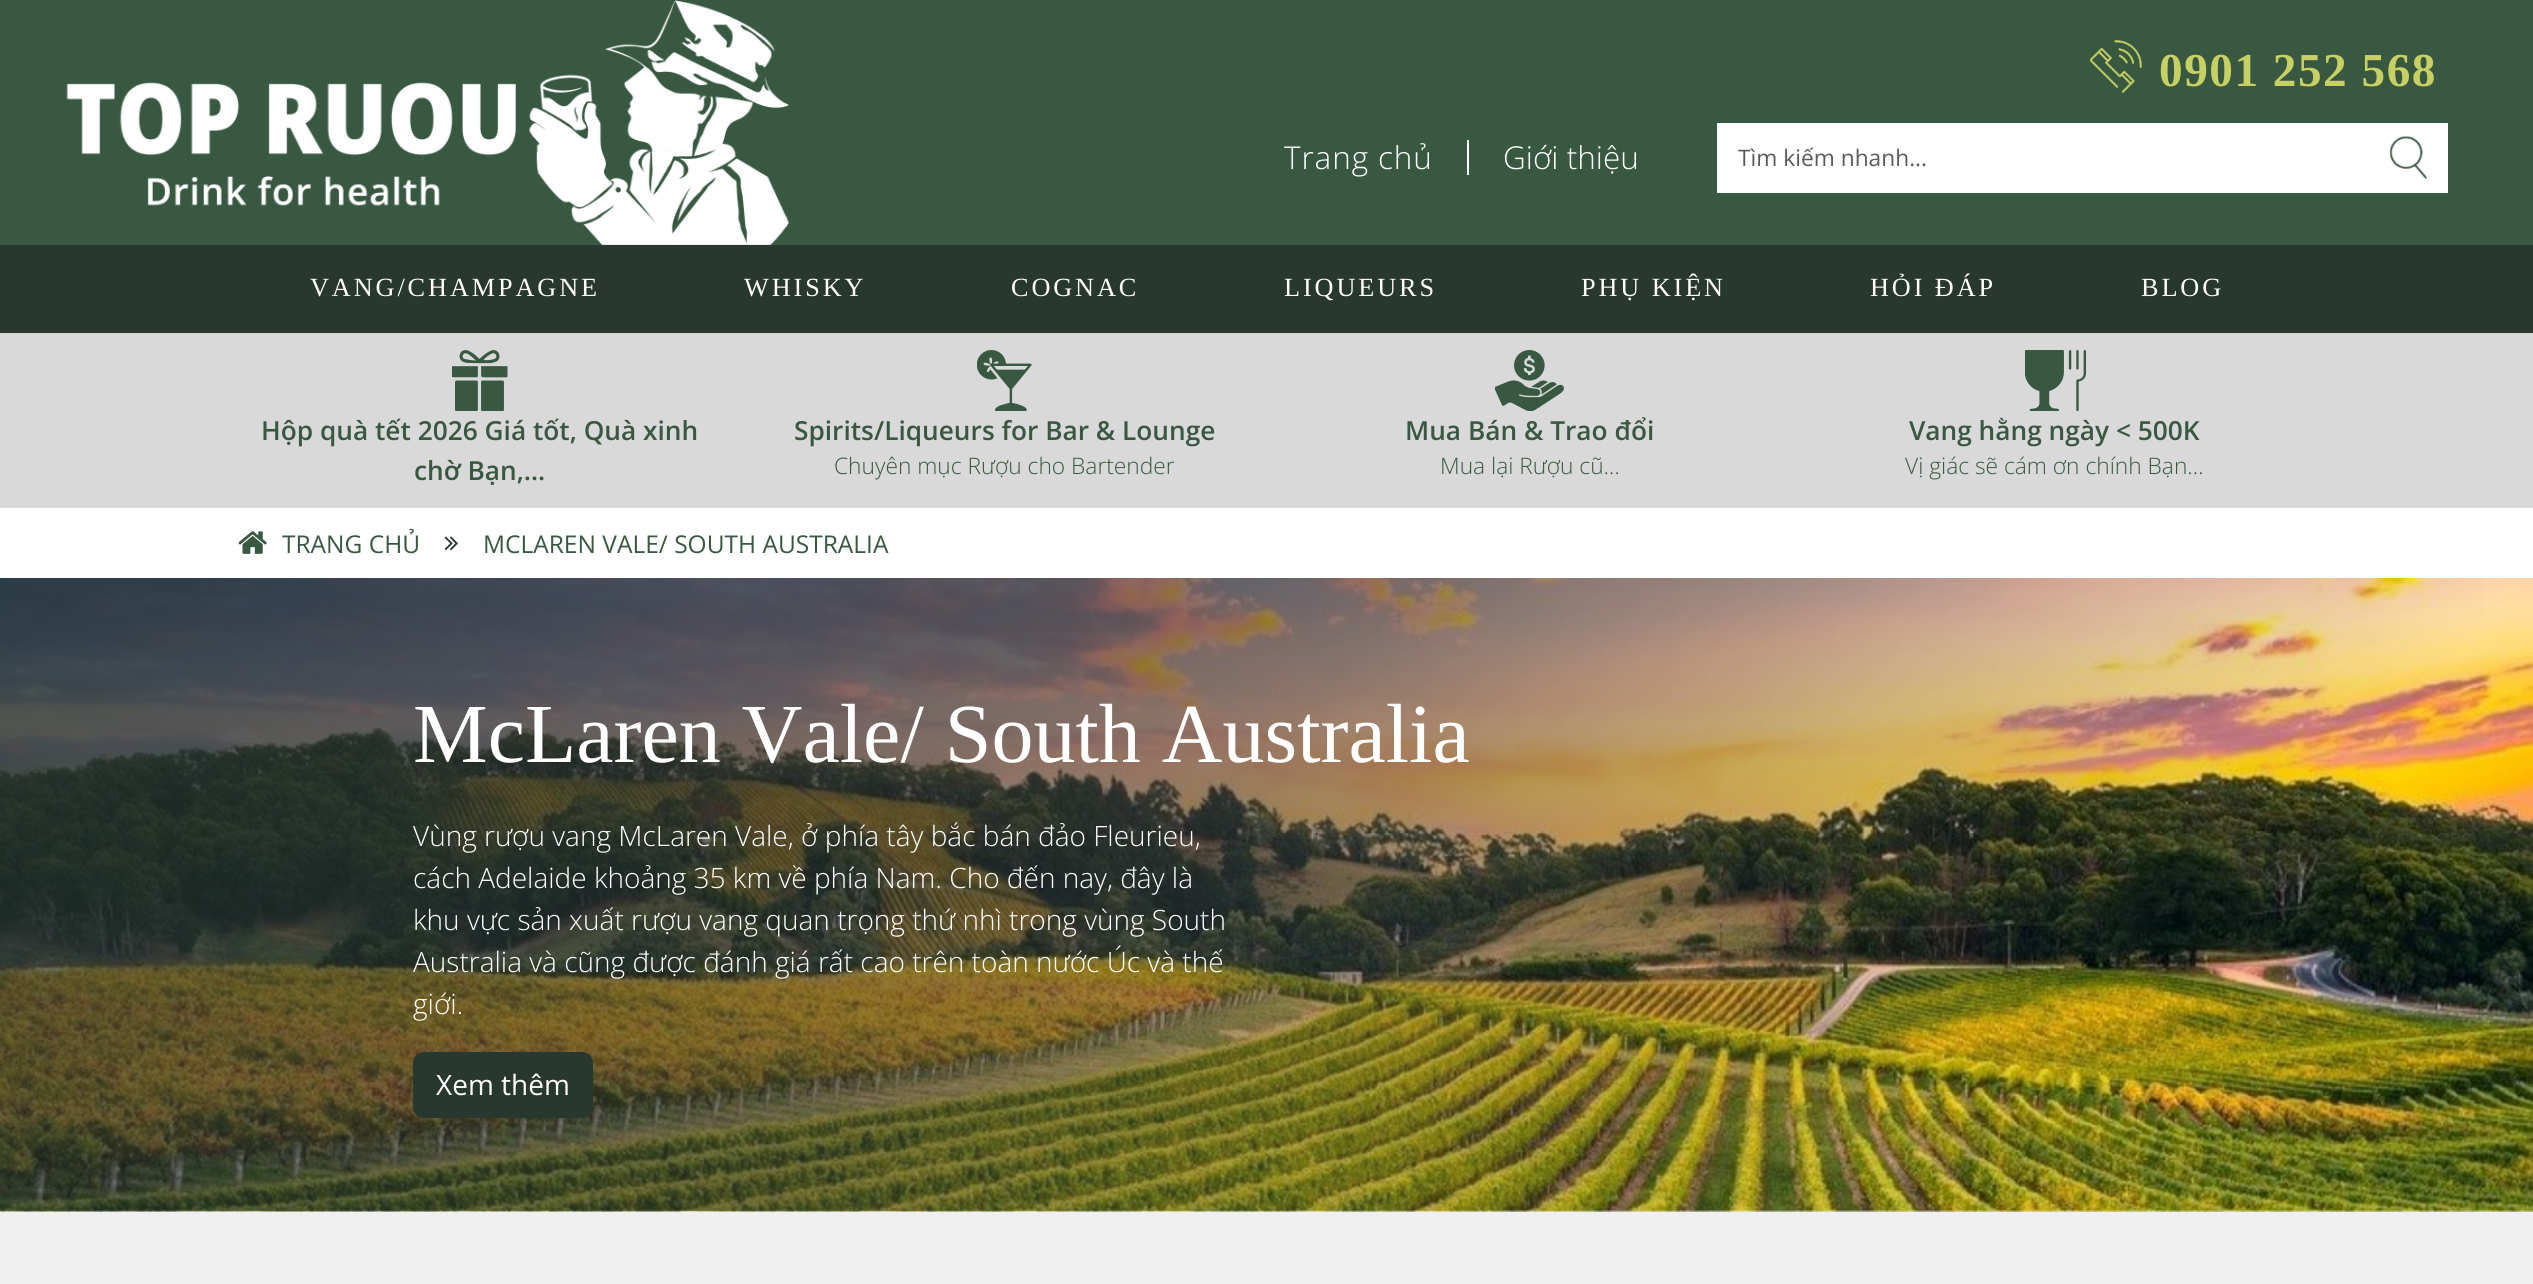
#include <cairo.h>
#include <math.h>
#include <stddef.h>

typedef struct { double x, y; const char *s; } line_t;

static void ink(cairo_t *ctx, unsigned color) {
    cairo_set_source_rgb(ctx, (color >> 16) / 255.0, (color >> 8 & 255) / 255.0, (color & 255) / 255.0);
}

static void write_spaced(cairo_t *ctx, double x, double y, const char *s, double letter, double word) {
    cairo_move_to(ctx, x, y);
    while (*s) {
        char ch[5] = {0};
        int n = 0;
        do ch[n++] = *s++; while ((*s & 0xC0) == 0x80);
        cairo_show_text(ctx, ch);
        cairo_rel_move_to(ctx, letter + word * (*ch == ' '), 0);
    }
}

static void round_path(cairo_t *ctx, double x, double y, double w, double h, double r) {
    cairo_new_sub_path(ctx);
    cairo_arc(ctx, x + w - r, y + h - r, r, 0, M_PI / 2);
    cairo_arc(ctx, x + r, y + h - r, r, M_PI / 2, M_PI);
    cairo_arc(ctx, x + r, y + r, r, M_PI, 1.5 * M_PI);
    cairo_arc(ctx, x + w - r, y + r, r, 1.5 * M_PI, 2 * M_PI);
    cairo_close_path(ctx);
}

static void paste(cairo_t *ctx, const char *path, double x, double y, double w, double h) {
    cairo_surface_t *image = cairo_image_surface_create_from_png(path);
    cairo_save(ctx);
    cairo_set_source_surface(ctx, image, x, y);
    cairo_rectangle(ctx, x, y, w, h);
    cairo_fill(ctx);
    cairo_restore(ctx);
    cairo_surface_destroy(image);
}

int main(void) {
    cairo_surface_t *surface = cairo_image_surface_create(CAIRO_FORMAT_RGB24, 2533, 1284);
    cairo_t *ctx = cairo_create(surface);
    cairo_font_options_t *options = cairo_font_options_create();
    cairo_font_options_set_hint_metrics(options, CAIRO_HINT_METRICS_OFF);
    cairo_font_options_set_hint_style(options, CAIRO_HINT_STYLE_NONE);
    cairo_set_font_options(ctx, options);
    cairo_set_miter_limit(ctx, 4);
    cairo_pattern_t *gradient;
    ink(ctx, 0xD9D9D9);
    cairo_paint(ctx);
    ink(ctx, 0x395841);
    cairo_rectangle(ctx, 0, 0, 2533, 245);
    cairo_fill(ctx);
    paste(ctx, "media/1.png", 66, 0, 723, 245);
    paste(ctx, "media/2.png", 2090, 40, 52, 53);
    cairo_select_font_face(ctx, "Liberation Serif", CAIRO_FONT_SLANT_NORMAL, CAIRO_FONT_WEIGHT_BOLD);
    cairo_set_font_size(ctx, 47.25);
    ink(ctx, 0xC7D062);
    write_spaced(ctx, 2159, 86, "0901 252 568", 1.5, 0);
    cairo_select_font_face(ctx, "Open Sans Light", CAIRO_FONT_SLANT_NORMAL, CAIRO_FONT_WEIGHT_NORMAL);
    cairo_set_font_size(ctx, 31.5);
    ink(ctx, 0xFFFFFF);
    write_spaced(ctx, 1284, 169, "Trang chủ", 0.9, 0);
    cairo_rectangle(ctx, 1467, 140, 2, 35);
    cairo_fill(ctx);
    cairo_move_to(ctx, 1503, 169);
    cairo_show_text(ctx, "Giới thiệu");
    cairo_rectangle(ctx, 1717, 123, 731, 70);
    cairo_fill(ctx);
    cairo_select_font_face(ctx, "Open Sans", CAIRO_FONT_SLANT_NORMAL, CAIRO_FONT_WEIGHT_NORMAL);
    cairo_set_font_size(ctx, 22.75);
    ink(ctx, 0x595C5F);
    cairo_move_to(ctx, 1738, 166);
    cairo_show_text(ctx, "Tìm kiếm nhanh...");
    paste(ctx, "media/3.png", 2389, 136, 38, 43);
    ink(ctx, 0x28382E);
    cairo_rectangle(ctx, 0, 245, 2533, 88);
    cairo_fill(ctx);
    cairo_select_font_face(ctx, "Liberation Serif", CAIRO_FONT_SLANT_NORMAL, CAIRO_FONT_WEIGHT_NORMAL);
    cairo_set_font_size(ctx, 26.25);
    ink(ctx, 0xFFFFFF);
    {
        static const line_t items[] = {
            {310, 296, "VANG/CHAMPAGNE"},
            {744, 296, "WHISKY"},
            {1011, 296, "COGNAC"},
            {1284, 296, "LIQUEURS"},
            {1581, 296, "PHỤ KIỆN"},
            {1870, 296, "HỎI ĐÁP"},
            {2141, 296, "BLOG"},
        };
        for (size_t i = 0; i < sizeof items / sizeof *items; i++) {
            write_spaced(ctx, items[i].x, items[i].y, items[i].s, 2.9, 0);
        }
    }
    paste(ctx, "media/4.png", 452, 350, 56, 61);
    cairo_select_font_face(ctx, "Open Sans SemiBold", CAIRO_FONT_SLANT_NORMAL, CAIRO_FONT_WEIGHT_NORMAL);
    ink(ctx, 0x395841);
    cairo_move_to(ctx, 261, 440);
    cairo_show_text(ctx, "Hộp quà tết 2026 Giá tốt, Quà xinh");
    cairo_move_to(ctx, 414, 480);
    cairo_show_text(ctx, "chờ Bạn,…");
    paste(ctx, "media/5.png", 977, 350, 55, 61);
    cairo_move_to(ctx, 794, 440);
    cairo_show_text(ctx, "Spirits/Liqueurs for Bar & Lounge");
    cairo_select_font_face(ctx, "Open Sans Light", CAIRO_FONT_SLANT_NORMAL, CAIRO_FONT_WEIGHT_NORMAL);
    cairo_set_font_size(ctx, 22.75);
    cairo_move_to(ctx, 834, 474);
    cairo_show_text(ctx, "Chuyên mục Rượu cho Bartender");
    paste(ctx, "media/6.png", 1495, 350, 69, 61);
    cairo_select_font_face(ctx, "Open Sans SemiBold", CAIRO_FONT_SLANT_NORMAL, CAIRO_FONT_WEIGHT_NORMAL);
    cairo_set_font_size(ctx, 26.25);
    cairo_move_to(ctx, 1405, 440);
    cairo_show_text(ctx, "Mua Bán & Trao đổi");
    cairo_select_font_face(ctx, "Open Sans Light", CAIRO_FONT_SLANT_NORMAL, CAIRO_FONT_WEIGHT_NORMAL);
    cairo_set_font_size(ctx, 22.75);
    cairo_move_to(ctx, 1440, 474);
    cairo_show_text(ctx, "Mua lại Rượu cũ…");
    paste(ctx, "media/7.png", 2025, 350, 61, 61);
    cairo_select_font_face(ctx, "Open Sans SemiBold", CAIRO_FONT_SLANT_NORMAL, CAIRO_FONT_WEIGHT_NORMAL);
    cairo_set_font_size(ctx, 26.25);
    cairo_move_to(ctx, 1909, 440);
    cairo_show_text(ctx, "Vang hằng ngày < 500K");
    cairo_select_font_face(ctx, "Open Sans Light", CAIRO_FONT_SLANT_NORMAL, CAIRO_FONT_WEIGHT_NORMAL);
    cairo_set_font_size(ctx, 22.75);
    cairo_move_to(ctx, 1905, 474);
    cairo_show_text(ctx, "Vị giác sẽ cám ơn chính Bạn…");
    ink(ctx, 0xF0F0F0);
    cairo_rectangle(ctx, 0, 1210, 2533, 74);
    cairo_fill(ctx);
    ink(ctx, 0xFFFFFF);
    cairo_rectangle(ctx, 0, 508, 2533, 70);
    cairo_fill(ctx);
    paste(ctx, "media/8.png", 238, 531, 29, 23);
    cairo_select_font_face(ctx, "Open Sans", CAIRO_FONT_SLANT_NORMAL, CAIRO_FONT_WEIGHT_NORMAL);
    cairo_set_font_size(ctx, 24.5);
    ink(ctx, 0x395841);
    cairo_move_to(ctx, 282, 553);
    cairo_show_text(ctx, "TRANG CHỦ");
    paste(ctx, "media/9.png", 444, 536, 14, 15);
    cairo_move_to(ctx, 483, 553);
    cairo_show_text(ctx, "MCLAREN VALE/ SOUTH AUSTRALIA");
    paste(ctx, "media/10.png", 0, 578, 2533, 634);
    gradient = cairo_pattern_create_linear(475, 102, 2059, 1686);
    cairo_pattern_add_color_stop_rgba(gradient, 0, 0.153, 0.22, 0.18, 0.7);
    cairo_pattern_add_color_stop_rgba(gradient, 0.45, 0.2, 0.2, 0.2, 0.5);
    cairo_pattern_add_color_stop_rgba(gradient, 0.8, 0.2, 0.2, 0.2, 0);
    cairo_set_source(ctx, gradient);
    cairo_pattern_destroy(gradient);
    cairo_rectangle(ctx, 0, 578, 2485, 633);
    cairo_fill(ctx);
    cairo_select_font_face(ctx, "Liberation Serif", CAIRO_FONT_SLANT_NORMAL, CAIRO_FONT_WEIGHT_NORMAL);
    cairo_set_font_size(ctx, 84);
    ink(ctx, 0xFFFFFF);
    cairo_move_to(ctx, 413, 762);
    cairo_show_text(ctx, "McLaren Vale/ South Australia");
    cairo_select_font_face(ctx, "Open Sans Light", CAIRO_FONT_SLANT_NORMAL, CAIRO_FONT_WEIGHT_NORMAL);
    cairo_set_font_size(ctx, 28);
    {
        static const line_t items[] = {
            {413, 846, "Vùng rượu vang McLaren Vale, ở phía tây bắc bán đảo Fleurieu,"},
            {413, 888, "cách Adelaide khoảng 35 km về phía Nam. Cho đến nay, đây là"},
            {413, 930, "khu vực sản xuất rượu vang quan trọng thứ nhì trong vùng South"},
            {413, 972, "Australia và cũng được đánh giá rất cao trên toàn nước Úc và thế"},
            {413, 1014, "giới."},
        };
        for (size_t i = 0; i < sizeof items / sizeof *items; i++) {
            cairo_move_to(ctx, items[i].x, items[i].y);
            cairo_show_text(ctx, items[i].s);
        }
    }
    ink(ctx, 0x28382E);
    round_path(ctx, 414, 1053, 178, 64, 10);
    cairo_fill_preserve(ctx);
    cairo_stroke(ctx);
    cairo_select_font_face(ctx, "Open Sans", CAIRO_FONT_SLANT_NORMAL, CAIRO_FONT_WEIGHT_NORMAL);
    ink(ctx, 0xFFFFFF);
    cairo_move_to(ctx, 436, 1095);
    cairo_show_text(ctx, "Xem thêm");
    cairo_surface_write_to_png(surface, "image.png");
    cairo_font_options_destroy(options);
    cairo_destroy(ctx);
    cairo_surface_destroy(surface);
    return 0;
}
